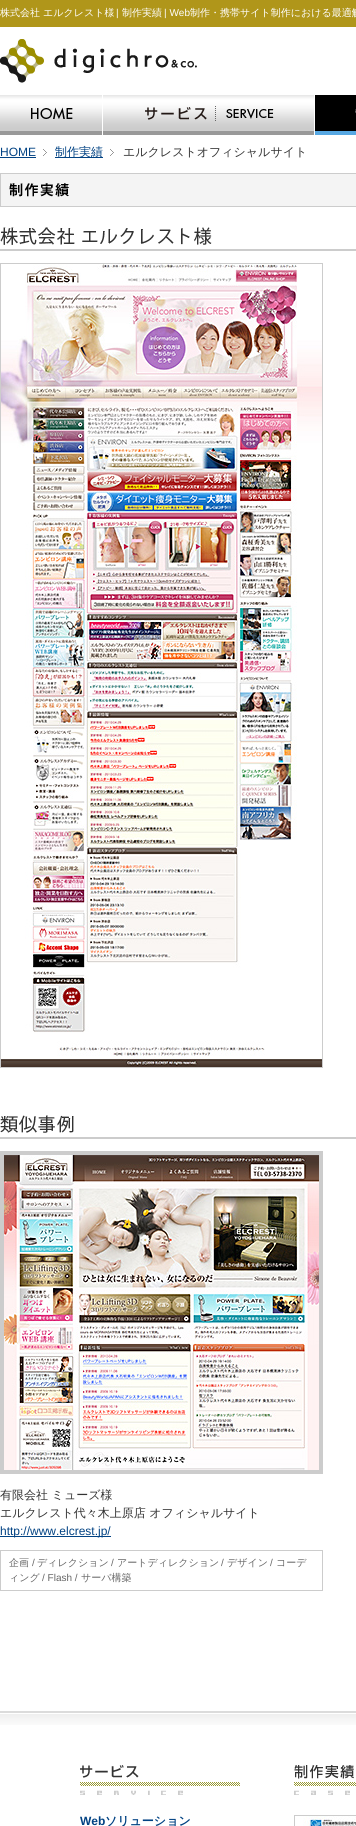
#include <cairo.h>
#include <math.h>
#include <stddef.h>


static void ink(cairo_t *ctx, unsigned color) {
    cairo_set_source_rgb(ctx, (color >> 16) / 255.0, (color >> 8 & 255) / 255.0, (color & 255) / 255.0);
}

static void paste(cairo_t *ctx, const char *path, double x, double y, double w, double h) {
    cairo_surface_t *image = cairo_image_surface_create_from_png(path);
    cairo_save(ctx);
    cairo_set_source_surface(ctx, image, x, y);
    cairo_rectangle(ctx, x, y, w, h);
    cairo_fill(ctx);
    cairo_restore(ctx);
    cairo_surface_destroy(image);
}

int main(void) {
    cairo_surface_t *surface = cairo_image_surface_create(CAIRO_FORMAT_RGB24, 356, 1826);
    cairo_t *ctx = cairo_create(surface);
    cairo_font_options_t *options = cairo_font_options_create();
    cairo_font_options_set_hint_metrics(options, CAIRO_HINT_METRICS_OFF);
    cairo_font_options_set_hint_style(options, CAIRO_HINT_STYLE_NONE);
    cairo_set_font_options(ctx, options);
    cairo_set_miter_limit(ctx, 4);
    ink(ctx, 0xFFFFFF);
    cairo_paint(ctx);
    ink(ctx, 0xB0961A);
    cairo_rectangle(ctx, 0, 0, 356, 27);
    cairo_fill(ctx);
    cairo_select_font_face(ctx, "WenQuanYi Zen Hei Medium", CAIRO_FONT_SLANT_NORMAL, CAIRO_FONT_WEIGHT_NORMAL);
    cairo_set_font_size(ctx, 10);
    ink(ctx, 0xFFFFFF);
    cairo_move_to(ctx, 0, 16);
    cairo_show_text(ctx, "株式会社 エルクレスト様");
    cairo_select_font_face(ctx, "Liberation Sans", CAIRO_FONT_SLANT_NORMAL, CAIRO_FONT_WEIGHT_NORMAL);
    cairo_move_to(ctx, 116, 16);
    cairo_show_text(ctx, "|");
    cairo_select_font_face(ctx, "WenQuanYi Zen Hei Medium", CAIRO_FONT_SLANT_NORMAL, CAIRO_FONT_WEIGHT_NORMAL);
    cairo_move_to(ctx, 122, 16);
    cairo_show_text(ctx, "制作実績");
    cairo_select_font_face(ctx, "Liberation Sans", CAIRO_FONT_SLANT_NORMAL, CAIRO_FONT_WEIGHT_NORMAL);
    cairo_move_to(ctx, 164, 16);
    cairo_show_text(ctx, "| Web");
    cairo_select_font_face(ctx, "WenQuanYi Zen Hei Medium", CAIRO_FONT_SLANT_NORMAL, CAIRO_FONT_WEIGHT_NORMAL);
    cairo_move_to(ctx, 190, 16);
    cairo_show_text(ctx, "制作・携帯サイト制作における最適解");
    paste(ctx, "media/1.png", 0, 39, 197, 44);
    paste(ctx, "media/2.png", 0, 95, 315, 40);
    paste(ctx, "media/3.png", 315, 95, 41, 40);
    cairo_select_font_face(ctx, "Liberation Sans", CAIRO_FONT_SLANT_NORMAL, CAIRO_FONT_WEIGHT_NORMAL);
    cairo_set_font_size(ctx, 12);
    ink(ctx, 0x014283);
    cairo_move_to(ctx, 0, 156);
    cairo_show_text(ctx, "HOME");
    cairo_rectangle(ctx, 0, 157, 36, 1);
    cairo_fill(ctx);
    paste(ctx, "media/4.png", 43, 149, 4, 7);
    cairo_rectangle(ctx, 55, 157, 48, 1);
    cairo_fill(ctx);
    cairo_select_font_face(ctx, "WenQuanYi Zen Hei Medium", CAIRO_FONT_SLANT_NORMAL, CAIRO_FONT_WEIGHT_NORMAL);
    cairo_move_to(ctx, 55, 156);
    cairo_show_text(ctx, "制作実績");
    paste(ctx, "media/4.png", 110, 149, 4, 7);
    ink(ctx, 0x333333);
    cairo_move_to(ctx, 123, 156);
    cairo_show_text(ctx, "エルクレストオフィシャルサイト");
    ink(ctx, 0xF4F4F4);
    cairo_rectangle(ctx, 0.5, 173.5, 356, 33);
    cairo_fill_preserve(ctx);
    ink(ctx, 0xCCCCCC);
    cairo_set_line_width(ctx, 1);
    cairo_stroke(ctx);
    paste(ctx, "media/5.png", 9, 183, 60, 14);
    cairo_rectangle(ctx, 0, 249, 356, 2);
    cairo_fill(ctx);
    paste(ctx, "media/6.png", 0, 227, 212, 18);
    cairo_rectangle(ctx, 0.5, 263.5, 322, 804);
    cairo_stroke(ctx);
    paste(ctx, "media/7.png", 1, 264, 321, 803);
    cairo_rectangle(ctx, 0, 1137, 356, 2);
    cairo_fill(ctx);
    paste(ctx, "media/8.png", 0, 1115, 74, 18);
    cairo_rectangle(ctx, 0, 1151, 323, 323);
    cairo_fill(ctx);
    paste(ctx, "media/9.png", 4, 1155, 315, 315);
    ink(ctx, 0x333333);
    cairo_move_to(ctx, 0, 1499);
    cairo_show_text(ctx, "有限会社 ミューズ様");
    cairo_move_to(ctx, 0, 1517);
    cairo_show_text(ctx, "エルクレスト代々木上原店 オフィシャルサイト");
    ink(ctx, 0x014283);
    cairo_rectangle(ctx, 0, 1536, 111, 1);
    cairo_fill(ctx);
    cairo_select_font_face(ctx, "Liberation Sans", CAIRO_FONT_SLANT_NORMAL, CAIRO_FONT_WEIGHT_NORMAL);
    cairo_move_to(ctx, 0, 1535);
    cairo_show_text(ctx, "http://www.elcrest.jp/");
    cairo_rectangle(ctx, 0.5, 1550.5, 322, 40);
    ink(ctx, 0xCCCCCC);
    cairo_stroke(ctx);
    cairo_select_font_face(ctx, "WenQuanYi Zen Hei Medium", CAIRO_FONT_SLANT_NORMAL, CAIRO_FONT_WEIGHT_NORMAL);
    cairo_set_font_size(ctx, 10);
    ink(ctx, 0x666666);
    cairo_move_to(ctx, 9, 1566);
    cairo_show_text(ctx, "企画");
    cairo_select_font_face(ctx, "Liberation Sans", CAIRO_FONT_SLANT_NORMAL, CAIRO_FONT_WEIGHT_NORMAL);
    cairo_move_to(ctx, 32, 1566);
    cairo_show_text(ctx, "/");
    cairo_select_font_face(ctx, "WenQuanYi Zen Hei Medium", CAIRO_FONT_SLANT_NORMAL, CAIRO_FONT_WEIGHT_NORMAL);
    cairo_move_to(ctx, 37, 1566);
    cairo_show_text(ctx, "ディレクション");
    cairo_select_font_face(ctx, "Liberation Sans", CAIRO_FONT_SLANT_NORMAL, CAIRO_FONT_WEIGHT_NORMAL);
    cairo_move_to(ctx, 111, 1566);
    cairo_show_text(ctx, "/");
    cairo_select_font_face(ctx, "WenQuanYi Zen Hei Medium", CAIRO_FONT_SLANT_NORMAL, CAIRO_FONT_WEIGHT_NORMAL);
    cairo_move_to(ctx, 117, 1566);
    cairo_show_text(ctx, "アートディレクション");
    cairo_select_font_face(ctx, "Liberation Sans", CAIRO_FONT_SLANT_NORMAL, CAIRO_FONT_WEIGHT_NORMAL);
    cairo_move_to(ctx, 221, 1566);
    cairo_show_text(ctx, "/");
    cairo_select_font_face(ctx, "WenQuanYi Zen Hei Medium", CAIRO_FONT_SLANT_NORMAL, CAIRO_FONT_WEIGHT_NORMAL);
    cairo_move_to(ctx, 227, 1566);
    cairo_show_text(ctx, "デザイン");
    cairo_select_font_face(ctx, "Liberation Sans", CAIRO_FONT_SLANT_NORMAL, CAIRO_FONT_WEIGHT_NORMAL);
    cairo_move_to(ctx, 270, 1566);
    cairo_show_text(ctx, "/");
    cairo_select_font_face(ctx, "WenQuanYi Zen Hei Medium", CAIRO_FONT_SLANT_NORMAL, CAIRO_FONT_WEIGHT_NORMAL);
    cairo_move_to(ctx, 276, 1566);
    cairo_show_text(ctx, "コーデ");
    cairo_move_to(ctx, 9, 1581);
    cairo_show_text(ctx, "ィング");
    cairo_select_font_face(ctx, "Liberation Sans", CAIRO_FONT_SLANT_NORMAL, CAIRO_FONT_WEIGHT_NORMAL);
    cairo_move_to(ctx, 42, 1581);
    cairo_show_text(ctx, "/ Flash /");
    cairo_select_font_face(ctx, "WenQuanYi Zen Hei Medium", CAIRO_FONT_SLANT_NORMAL, CAIRO_FONT_WEIGHT_NORMAL);
    cairo_move_to(ctx, 81, 1581);
    cairo_show_text(ctx, "サーバ構築");
    paste(ctx, "media/10.png", 0, 1711, 356, 14);
    paste(ctx, "media/11.png", 80, 1765, 160, 30);
    cairo_select_font_face(ctx, "Liberation Sans", CAIRO_FONT_SLANT_NORMAL, CAIRO_FONT_WEIGHT_BOLD);
    cairo_set_font_size(ctx, 12);
    ink(ctx, 0x014283);
    cairo_move_to(ctx, 80, 1825);
    cairo_show_text(ctx, "Web");
    cairo_select_font_face(ctx, "WenQuanYi Zen Hei", CAIRO_FONT_SLANT_NORMAL, CAIRO_FONT_WEIGHT_BOLD);
    cairo_move_to(ctx, 105, 1825);
    cairo_show_text(ctx, "ソリューション");
    paste(ctx, "media/12.png", 294, 1765, 62, 30);
    cairo_rectangle(ctx, 294.5, 1815.5, 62, 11);
    ink(ctx, 0xCCCCCC);
    cairo_stroke(ctx);
    paste(ctx, "media/13.png", 303, 1816, 53, 10);
    cairo_surface_write_to_png(surface, "image.png");
    cairo_font_options_destroy(options);
    cairo_destroy(ctx);
    cairo_surface_destroy(surface);
    return 0;
}
